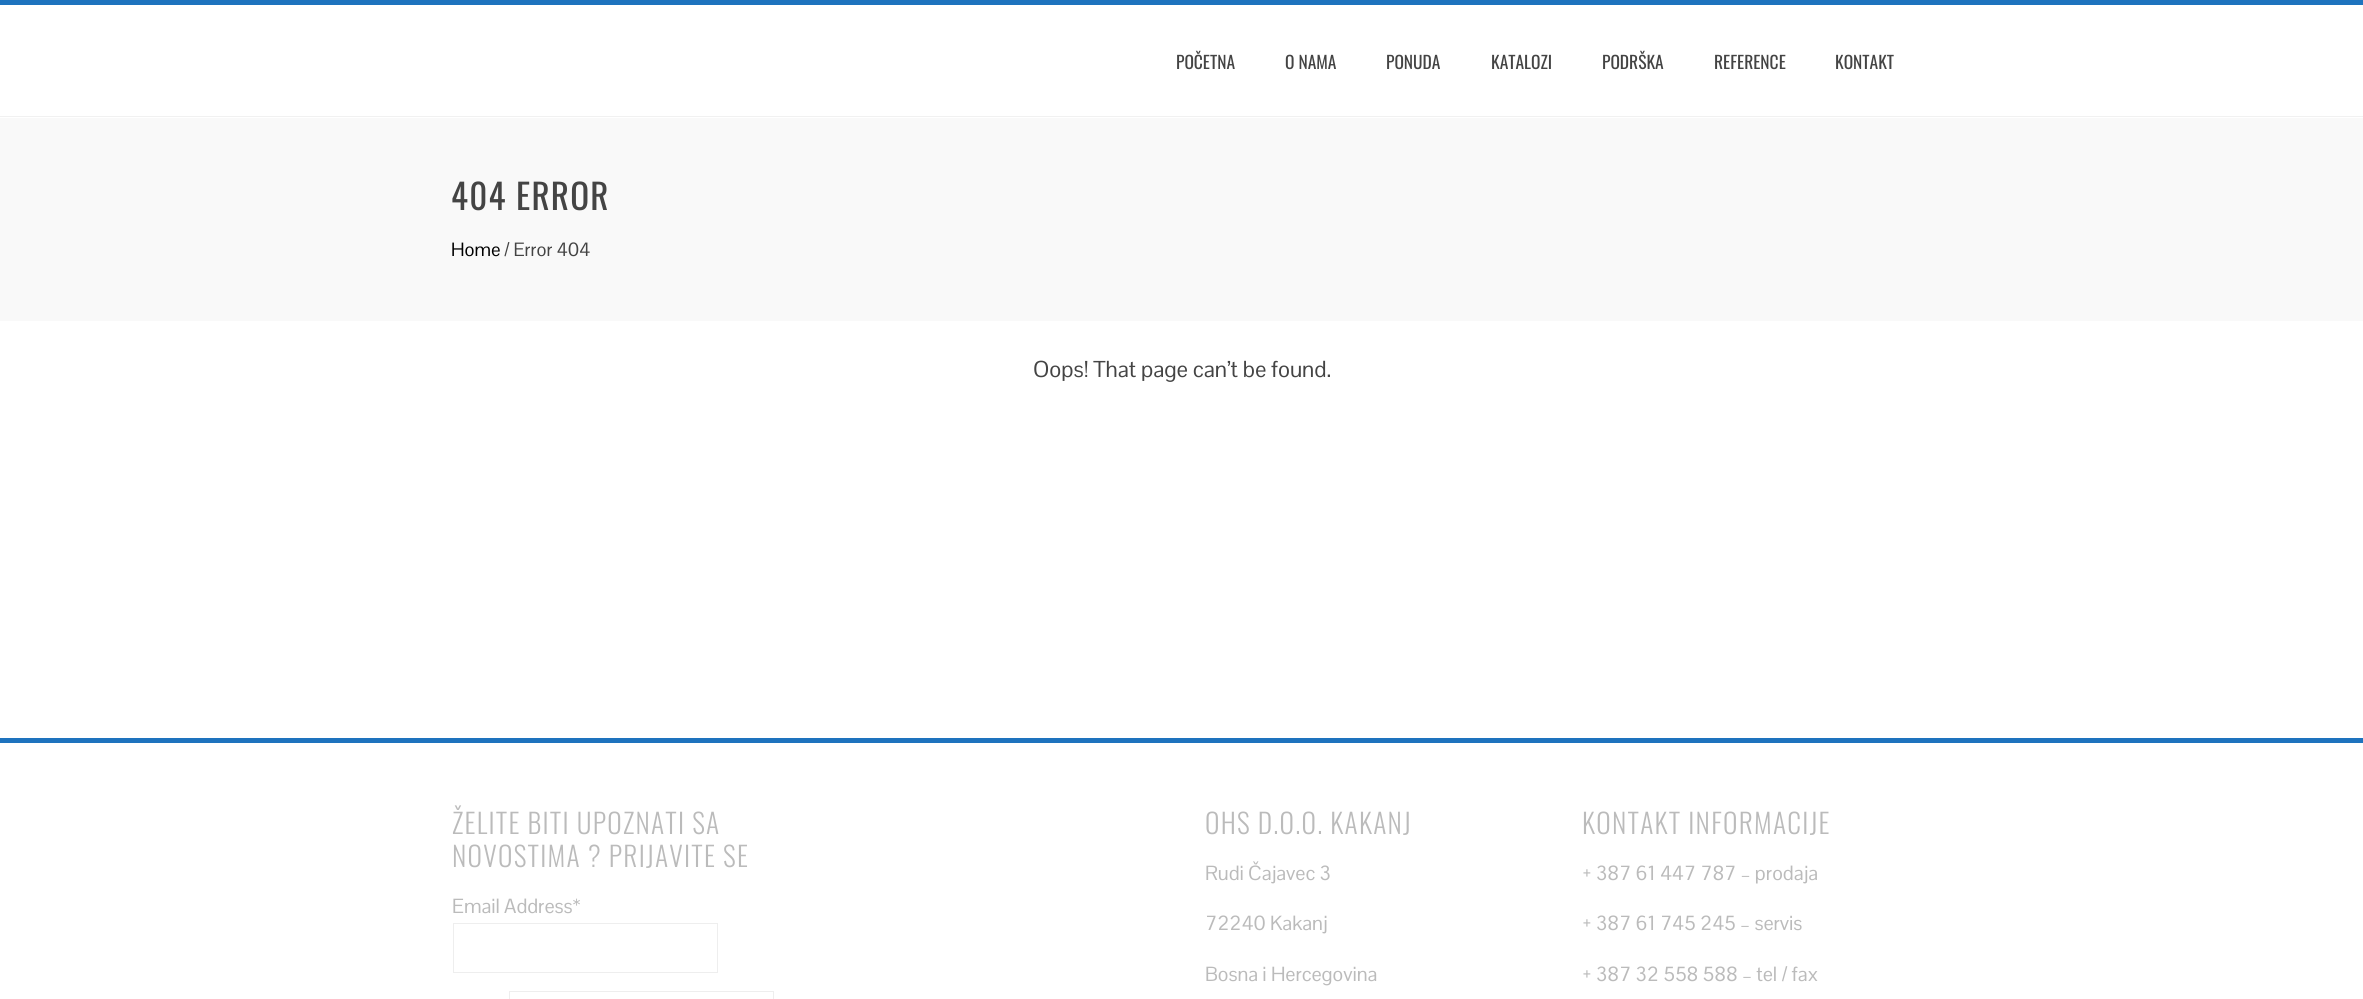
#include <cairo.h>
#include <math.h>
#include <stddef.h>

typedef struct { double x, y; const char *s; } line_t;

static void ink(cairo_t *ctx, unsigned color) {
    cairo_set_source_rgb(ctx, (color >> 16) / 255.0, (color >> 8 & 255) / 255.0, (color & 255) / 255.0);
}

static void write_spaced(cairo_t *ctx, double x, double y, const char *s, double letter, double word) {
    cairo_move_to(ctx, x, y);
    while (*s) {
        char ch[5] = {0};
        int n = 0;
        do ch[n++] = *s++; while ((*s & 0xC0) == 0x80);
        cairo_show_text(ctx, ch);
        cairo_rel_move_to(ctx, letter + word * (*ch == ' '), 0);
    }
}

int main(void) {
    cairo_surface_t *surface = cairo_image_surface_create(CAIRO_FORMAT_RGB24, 2363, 999);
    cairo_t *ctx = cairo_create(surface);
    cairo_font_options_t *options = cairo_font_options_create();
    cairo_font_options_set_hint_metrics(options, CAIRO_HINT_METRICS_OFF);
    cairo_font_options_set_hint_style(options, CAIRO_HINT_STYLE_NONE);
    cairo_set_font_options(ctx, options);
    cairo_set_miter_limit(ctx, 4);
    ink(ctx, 0xFFFFFF);
    cairo_paint(ctx);
    ink(ctx, 0x1E73BE);
    cairo_rectangle(ctx, 0, 0, 2363, 5);
    cairo_fill(ctx);
    ink(ctx, 0xF1F1F1);
    cairo_rectangle(ctx, 0, 116, 2363, 1);
    cairo_fill(ctx);
    cairo_select_font_face(ctx, "Oswald", CAIRO_FONT_SLANT_NORMAL, CAIRO_FONT_WEIGHT_NORMAL);
    cairo_set_font_size(ctx, 17.5);
    ink(ctx, 0x444444);
    {
        static const line_t items[] = {
            {1176, 69, "POČETNA"},
            {1285, 69, "O NAMA"},
            {1386, 69, "PONUDA"},
            {1491, 69, "KATALOZI"},
            {1602, 69, "PODRŠKA"},
            {1714, 69, "REFERENCE"},
            {1835, 69, "KONTAKT"},
        };
        for (size_t i = 0; i < sizeof items / sizeof *items; i++) {
            cairo_move_to(ctx, items[i].x, items[i].y);
            cairo_show_text(ctx, items[i].s);
        }
    }
    ink(ctx, 0xF9F9F9);
    cairo_rectangle(ctx, 0, 118, 2363, 203);
    cairo_fill(ctx);
    cairo_set_font_size(ctx, 35);
    ink(ctx, 0x444444);
    write_spaced(ctx, 451, 210, "404 ERROR", 1.25, 0);
    cairo_select_font_face(ctx, "Pontano Sans", CAIRO_FONT_SLANT_NORMAL, CAIRO_FONT_WEIGHT_NORMAL);
    cairo_set_font_size(ctx, 18.75);
    ink(ctx, 0x000000);
    cairo_move_to(ctx, 451, 256);
    cairo_show_text(ctx, "Home");
    ink(ctx, 0x444444);
    cairo_move_to(ctx, 504, 256);
    cairo_show_text(ctx, "/ Error 404");
    cairo_set_font_size(ctx, 22.5);
    cairo_move_to(ctx, 1033, 377);
    cairo_show_text(ctx, "Oops! That page can’t be found.");
    ink(ctx, 0x1E73BE);
    cairo_rectangle(ctx, 0, 738, 2363, 5);
    cairo_fill(ctx);
    cairo_select_font_face(ctx, "Oswald Light", CAIRO_FONT_SLANT_NORMAL, CAIRO_FONT_WEIGHT_NORMAL);
    cairo_set_font_size(ctx, 27.5);
    ink(ctx, 0xBBBBBB);
    write_spaced(ctx, 452, 834, "ŽELITE BITI UPOZNATI SA", 1.25, 0);
    write_spaced(ctx, 452, 867, "NOVOSTIMA ? PRIJAVITE SE", 1.25, 0);
    cairo_select_font_face(ctx, "Pontano Sans", CAIRO_FONT_SLANT_NORMAL, CAIRO_FONT_WEIGHT_NORMAL);
    cairo_set_font_size(ctx, 20);
    cairo_move_to(ctx, 452, 913);
    cairo_show_text(ctx, "Email Address*");
    cairo_rectangle(ctx, 453.5, 923.5, 264, 49);
    ink(ctx, 0xEEEEEE);
    cairo_set_line_width(ctx, 1);
    cairo_stroke(ctx);
    cairo_rectangle(ctx, 509.5, 991.5, 264, 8);
    cairo_stroke(ctx);
    cairo_select_font_face(ctx, "Oswald Light", CAIRO_FONT_SLANT_NORMAL, CAIRO_FONT_WEIGHT_NORMAL);
    cairo_set_font_size(ctx, 27.5);
    ink(ctx, 0xBBBBBB);
    write_spaced(ctx, 1205, 834, "OHS D.O.O. KAKANJ", 1.25, 0);
    cairo_select_font_face(ctx, "Pontano Sans", CAIRO_FONT_SLANT_NORMAL, CAIRO_FONT_WEIGHT_NORMAL);
    cairo_set_font_size(ctx, 20);
    {
        static const line_t items[] = {
            {1205, 880, "Rudi Čajavec 3"},
            {1205, 930, "72240 Kakanj"},
            {1205, 981, "Bosna i Hercegovina"},
        };
        for (size_t i = 0; i < sizeof items / sizeof *items; i++) {
            cairo_move_to(ctx, items[i].x, items[i].y);
            cairo_show_text(ctx, items[i].s);
        }
    }
    cairo_select_font_face(ctx, "Oswald Light", CAIRO_FONT_SLANT_NORMAL, CAIRO_FONT_WEIGHT_NORMAL);
    cairo_set_font_size(ctx, 27.5);
    write_spaced(ctx, 1582, 834, "KONTAKT INFORMACIJE", 1.25, 0);
    cairo_select_font_face(ctx, "Pontano Sans", CAIRO_FONT_SLANT_NORMAL, CAIRO_FONT_WEIGHT_NORMAL);
    cairo_set_font_size(ctx, 20);
    {
        static const line_t items[] = {
            {1582, 880, "+ 387 61 447 787 – prodaja"},
            {1582, 930, "+ 387 61 745 245 – servis"},
            {1582, 981, "+ 387 32 558 588 – tel / fax"},
        };
        for (size_t i = 0; i < sizeof items / sizeof *items; i++) {
            cairo_move_to(ctx, items[i].x, items[i].y);
            cairo_show_text(ctx, items[i].s);
        }
    }
    cairo_surface_write_to_png(surface, "image.png");
    cairo_font_options_destroy(options);
    cairo_destroy(ctx);
    cairo_surface_destroy(surface);
    return 0;
}
